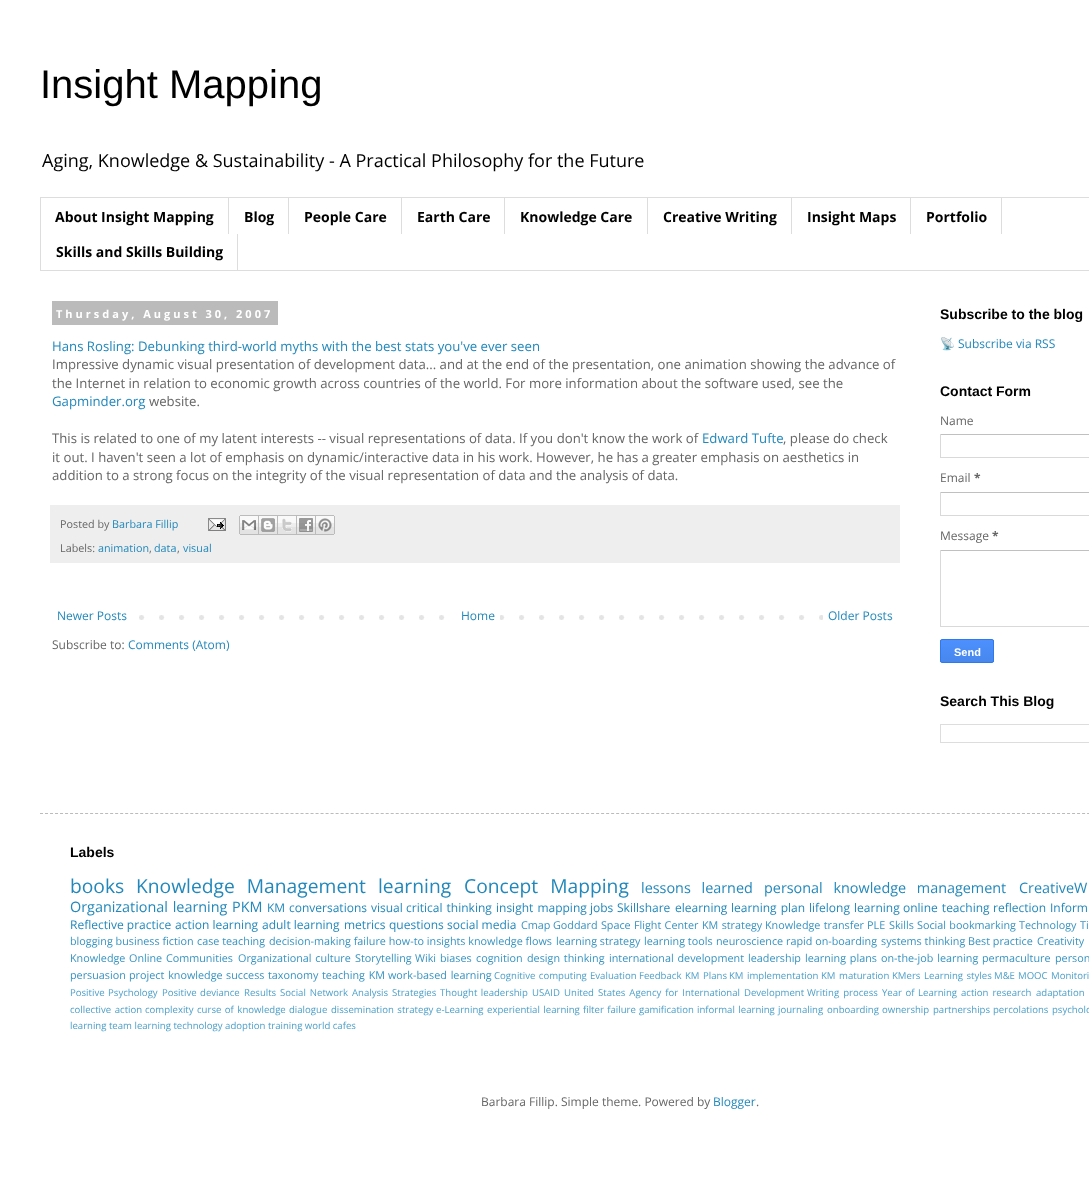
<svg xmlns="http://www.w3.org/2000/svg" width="1089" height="1187">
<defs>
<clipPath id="clip1"><rect x="940" y="639" width="54" height="24" rx="2"/></clipPath>
<linearGradient id="g1" gradientUnits="userSpaceOnUse" x1="967" y1="640" x2="967" y2="662"><stop offset="0" stop-color="#4d90fe"/><stop offset="1" stop-color="#4787ed"/></linearGradient>
</defs>
<rect width="100%" height="100%" fill="#fff"/>
<text x="40" y="98" style="font-family:Liberation Sans;font-size:40px;fill:#000">Insight Mapping</text>
<text x="42" y="167" style="font-family:Open Sans;font-size:18px;fill:#000">Aging, Knowledge &amp; Sustainability - A Practical Philosophy for the Future</text>
<rect x="40.5" y="197.5" width="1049" height="73" fill="none" stroke="#ddd"/>
<rect x="228" y="198" width="1" height="36" fill="#ddd"/>
<text x="55" y="222" style="font-family:Open Sans;font-size:14px;font-weight:bold;fill:#000">About Insight Mapping</text>
<rect x="288" y="198" width="1" height="36" fill="#ddd"/>
<text x="244" y="222" style="font-family:Open Sans;font-size:14px;font-weight:bold;fill:#000">Blog</text>
<rect x="401" y="198" width="1" height="36" fill="#ddd"/>
<text x="304" y="222" style="font-family:Open Sans;font-size:14px;font-weight:bold;fill:#000">People Care</text>
<rect x="504" y="198" width="1" height="36" fill="#ddd"/>
<text x="417" y="222" style="font-family:Open Sans;font-size:14px;font-weight:bold;fill:#000">Earth Care</text>
<rect x="647" y="198" width="1" height="36" fill="#ddd"/>
<text x="520" y="222" style="font-family:Open Sans;font-size:14px;font-weight:bold;fill:#000">Knowledge Care</text>
<rect x="791" y="198" width="1" height="36" fill="#ddd"/>
<text x="663" y="222" style="font-family:Open Sans;font-size:14px;font-weight:bold;fill:#000">Creative Writing</text>
<rect x="910" y="198" width="1" height="36" fill="#ddd"/>
<text x="807" y="222" style="font-family:Open Sans;font-size:14px;font-weight:bold;fill:#000">Insight Maps</text>
<rect x="1001" y="198" width="1" height="36" fill="#ddd"/>
<text x="926" y="222" style="font-family:Open Sans;font-size:14px;font-weight:bold;fill:#000">Portfolio</text>
<rect x="237" y="234" width="1" height="36" fill="#ddd"/>
<text x="56" y="257" style="font-family:Open Sans;font-size:14px;font-weight:bold;fill:#000">Skills and Skills Building</text>
<rect x="52" y="301" width="226" height="24" fill="#bbb"/>
<text x="56" y="318" style="font-family:Open Sans;font-size:11px;font-weight:bold;letter-spacing:3px;fill:#fff">Thursday, August 30, 2007</text>
<text x="52" y="351" style="font-family:Open Sans;font-size:13.2px;fill:#28b">Hans Rosling: Debunking third-world myths with the best stats you've ever seen</text>
<text x="52" y="369" style="font-family:Open Sans;font-size:13.2px;fill:#666">Impressive dynamic visual presentation of development data... and at the end of the presentation, one animation showing the advance of</text>
<text x="52" y="388" style="font-family:Open Sans;font-size:13.2px;fill:#666">the Internet in relation to economic growth across countries of the world. For more information about the software used, see the</text>
<text x="52" y="406" style="font-family:Open Sans;font-size:13.2px;fill:#28b">Gapminder.org</text>
<text x="149" y="406" style="font-family:Open Sans;font-size:13.2px;fill:#666">website.</text>
<text x="52" y="443" style="font-family:Open Sans;font-size:13.2px;fill:#666">This is related to one of my latent interests -- visual representations of data. If you don't know the work of</text>
<text x="702" y="443" style="font-family:Open Sans;font-size:13.2px;fill:#28b">Edward Tufte</text>
<text x="783" y="443" style="font-family:Open Sans;font-size:13.2px;fill:#666">, please do check</text>
<text x="52" y="462" style="font-family:Open Sans;font-size:13.2px;fill:#666">it out. I haven't seen a lot of emphasis on dynamic/interactive data in his work. However, he has a greater emphasis on aesthetics in</text>
<text x="52" y="480" style="font-family:Open Sans;font-size:13.2px;fill:#666">addition to a strong focus on the integrity of the visual representation of data and the analysis of data.</text>
<rect x="50" y="505" width="850" height="58" fill="#eee"/>
<text x="60" y="528" style="font-family:Open Sans;font-size:10.8px;fill:#666">Posted by</text>
<text x="112" y="528" style="font-family:Open Sans;font-size:10.8px;fill:#28b">Barbara Fillip</text>
<image x="208" y="518" width="18" height="13" href="media/1.png"/>
<image x="239" y="515" width="20" height="20" href="media/2.png"/>
<image x="259" y="515" width="19" height="20" href="media/3.png"/>
<image x="278" y="515" width="19" height="20" href="media/4.png"/>
<image x="297" y="515" width="19" height="20" href="media/5.png"/>
<image x="316" y="515" width="19" height="20" href="media/6.png"/>
<text x="60" y="552" style="font-family:Open Sans;font-size:10.8px;fill:#666">Labels:</text>
<text x="98" y="552" style="font-family:Open Sans;font-size:10.8px;fill:#28b">animation</text>
<text x="149" y="552" style="font-family:Open Sans;font-size:10.8px;fill:#666">,</text>
<text x="154" y="552" style="font-family:Open Sans;font-size:10.8px;fill:#28b">data</text>
<text x="177" y="552" style="font-family:Open Sans;font-size:10.8px;fill:#666">,</text>
<text x="183" y="552" style="font-family:Open Sans;font-size:10.8px;fill:#28b">visual</text>
<image x="139" y="615" width="684" height="5" href="media/7.png"/>
<text x="57" y="620" style="font-family:Open Sans;font-size:12px;fill:#28b">Newer Posts</text>
<rect x="459" y="615" width="41" height="5" fill="#fff"/>
<text x="461" y="620" style="font-family:Open Sans;font-size:12px;fill:#28b">Home</text>
<text x="828" y="620" style="font-family:Open Sans;font-size:12px;fill:#28b">Older Posts</text>
<text x="52" y="649" style="font-family:Open Sans;font-size:12px;fill:#666">Subscribe to:</text>
<text x="128" y="649" style="font-family:Open Sans;font-size:12px;fill:#28b">Comments (Atom)</text>
<text x="940" y="319" style="font-family:Liberation Sans;font-size:14px;font-weight:bold;fill:#000">Subscribe to the blog</text>
<text x="940" y="348" style="font-family:Noto Color Emoji;font-size:12px;fill:#28b">📡</text>
<text x="958" y="348" style="font-family:Open Sans;font-size:12px;fill:#28b">Subscribe via RSS</text>
<text x="940" y="396" style="font-family:Liberation Sans;font-size:14px;font-weight:bold;fill:#000">Contact Form</text>
<text x="940" y="425" style="font-family:Open Sans;font-size:12px;fill:#666">Name</text>
<rect x="940" y="434" width="149" height="1" fill="#c0c0c0"/>
<rect x="940" y="457" width="149" height="1" fill="#d9d9d9"/>
<rect x="940" y="434" width="1" height="24" fill="#d9d9d9"/>
<text x="940" y="482" style="font-family:Open Sans;font-size:12px;fill:#666">Email</text>
<text x="974" y="482" style="font-family:Open Sans;font-size:12px;font-weight:bold;fill:#666">*</text>
<rect x="940" y="492" width="149" height="1" fill="#c0c0c0"/>
<rect x="940" y="515" width="149" height="1" fill="#d9d9d9"/>
<rect x="940" y="492" width="1" height="24" fill="#d9d9d9"/>
<text x="940" y="540" style="font-family:Open Sans;font-size:12px;fill:#666">Message</text>
<text x="992" y="540" style="font-family:Open Sans;font-size:12px;font-weight:bold;fill:#666">*</text>
<rect x="940" y="550" width="149" height="1" fill="#c0c0c0"/>
<rect x="940" y="626" width="149" height="1" fill="#d9d9d9"/>
<rect x="940" y="550" width="1" height="77" fill="#d9d9d9"/>
<g clip-path="url(#clip1)">
<rect x="940" y="640" width="54" height="22" fill="url(#g1)"/>
</g>
<rect x="940.5" y="639.5" width="53" height="23" rx="1.5" fill="none" stroke="#3079ed"/>
<text x="954" y="656" style="font-family:Liberation Sans;font-size:11px;font-weight:bold;fill:#fff">Send</text>
<text x="940" y="706" style="font-family:Liberation Sans;font-size:14px;font-weight:bold;fill:#000">Search This Blog</text>
<rect x="940.5" y="724.5" width="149" height="18" fill="none" stroke="#ddd"/>
<path d="M40 813.5h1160" fill="none" stroke="#bbb" stroke-dasharray="3 2.01"/>
<text x="70" y="857" style="font-family:Liberation Sans;font-size:14px;font-weight:bold;fill:#000">Labels</text>
<text x="70" y="893" style="font-family:Open Sans;font-size:19.25px;fill:#28b">books</text>
<text x="136" y="893" word-spacing="7" style="font-family:Open Sans;font-size:19.25px;fill:#28b">Knowledge Management</text>
<text x="378" y="893" style="font-family:Open Sans;font-size:19.25px;fill:#28b">learning</text>
<text x="464" y="893" word-spacing="7" style="font-family:Open Sans;font-size:19.25px;fill:#28b">Concept Mapping</text>
<text x="641" y="893" word-spacing="7" style="font-family:Open Sans;font-size:14.4px;fill:#28b">lessons learned</text>
<text x="764" y="893" word-spacing="7" style="font-family:Open Sans;font-size:14.4px;fill:#28b">personal knowledge management</text>
<text x="1019" y="893" style="font-family:Open Sans;font-size:14.4px;fill:#28b">CreativeW</text>
<text x="70" y="912" word-spacing="1" style="font-family:Open Sans;font-size:14.4px;fill:#28b">Organizational learning</text>
<text x="232" y="912" style="font-family:Open Sans;font-size:14.4px;fill:#28b">PKM</text>
<text x="267" y="912" style="font-family:Open Sans;font-size:12px;fill:#28b">KM</text>
<text x="289" y="912" style="font-family:Open Sans;font-size:12px;fill:#28b">conversations</text>
<text x="371" y="912" style="font-family:Open Sans;font-size:12px;fill:#28b">visual</text>
<text x="406" y="912" word-spacing="1" style="font-family:Open Sans;font-size:12px;fill:#28b">critical thinking</text>
<text x="496" y="912" word-spacing="1" style="font-family:Open Sans;font-size:12px;fill:#28b">insight mapping</text>
<text x="590" y="912" style="font-family:Open Sans;font-size:12px;fill:#28b">jobs</text>
<text x="617" y="912" style="font-family:Open Sans;font-size:12px;fill:#28b">Skillshare</text>
<text x="675" y="912" style="font-family:Open Sans;font-size:12px;fill:#28b">elearning</text>
<text x="731" y="912" word-spacing="1" style="font-family:Open Sans;font-size:12px;fill:#28b">learning plan</text>
<text x="809" y="912" word-spacing="1" style="font-family:Open Sans;font-size:12px;fill:#28b">lifelong learning</text>
<text x="903" y="912" word-spacing="1" style="font-family:Open Sans;font-size:12px;fill:#28b">online teaching</text>
<text x="993" y="912" style="font-family:Open Sans;font-size:12px;fill:#28b">reflection</text>
<text x="1050" y="912" word-spacing="1" style="font-family:Open Sans;font-size:12px;fill:#28b">Inform</text>
<text x="70" y="929" style="font-family:Open Sans;font-size:12px;fill:#28b">Reflective practice</text>
<text x="175" y="929" style="font-family:Open Sans;font-size:12px;fill:#28b">action learning</text>
<text x="262" y="929" style="font-family:Open Sans;font-size:12px;fill:#28b">adult learning</text>
<text x="344" y="929" style="font-family:Open Sans;font-size:12px;fill:#28b">metrics</text>
<text x="389" y="929" style="font-family:Open Sans;font-size:12px;fill:#28b">questions</text>
<text x="447" y="929" style="font-family:Open Sans;font-size:12px;fill:#28b">social media</text>
<text x="521" y="929" style="font-family:Open Sans;font-size:10.8px;fill:#3894c2">Cmap</text>
<text x="553" y="929" word-spacing="0.5" style="font-family:Open Sans;font-size:10.8px;fill:#3894c2">Goddard Space Flight Center</text>
<text x="702" y="929" word-spacing="0.5" style="font-family:Open Sans;font-size:10.8px;fill:#3894c2">KM strategy</text>
<text x="765" y="929" word-spacing="0.5" style="font-family:Open Sans;font-size:10.8px;fill:#3894c2">Knowledge transfer</text>
<text x="867" y="929" style="font-family:Open Sans;font-size:10.8px;fill:#3894c2">PLE</text>
<text x="889" y="929" style="font-family:Open Sans;font-size:10.8px;fill:#3894c2">Skills</text>
<text x="917" y="929" word-spacing="0.5" style="font-family:Open Sans;font-size:10.8px;fill:#3894c2">Social bookmarking</text>
<text x="1019" y="929" style="font-family:Open Sans;font-size:10.8px;fill:#3894c2">Technology</text>
<text x="1080" y="929" style="font-family:Open Sans;font-size:10.8px;fill:#3894c2">Ti</text>
<text x="70" y="945" style="font-family:Open Sans;font-size:10.8px;fill:#3894c2">blogging business fiction</text>
<text x="197" y="945" style="font-family:Open Sans;font-size:10.8px;fill:#3894c2">case teaching</text>
<text x="269" y="945" style="font-family:Open Sans;font-size:10.8px;fill:#3894c2">decision-making failure how-to insights knowledge flows</text>
<text x="556" y="945" style="font-family:Open Sans;font-size:10.8px;fill:#3894c2">learning strategy</text>
<text x="644" y="945" style="font-family:Open Sans;font-size:10.8px;fill:#3894c2">learning tools</text>
<text x="716" y="945" style="font-family:Open Sans;font-size:10.8px;fill:#3894c2">neuroscience rapid on-boarding</text>
<text x="881" y="945" style="font-family:Open Sans;font-size:10.8px;fill:#3894c2">systems thinking</text>
<text x="968" y="945" style="font-family:Open Sans;font-size:10.8px;fill:#3894c2">Best practice</text>
<text x="1037" y="945" style="font-family:Open Sans;font-size:10.8px;fill:#3894c2">Creativity</text>
<text x="70" y="962" style="font-family:Open Sans;font-size:10.8px;fill:#3894c2">Knowledge</text>
<text x="129" y="962" word-spacing="1" style="font-family:Open Sans;font-size:10.8px;fill:#3894c2">Online Communities</text>
<text x="238" y="962" word-spacing="1" style="font-family:Open Sans;font-size:10.8px;fill:#3894c2">Organizational culture</text>
<text x="355" y="962" style="font-family:Open Sans;font-size:10.8px;fill:#3894c2">Storytelling</text>
<text x="415" y="962" style="font-family:Open Sans;font-size:10.8px;fill:#3894c2">Wiki</text>
<text x="440" y="962" style="font-family:Open Sans;font-size:10.8px;fill:#3894c2">biases</text>
<text x="476" y="962" style="font-family:Open Sans;font-size:10.8px;fill:#3894c2">cognition</text>
<text x="527" y="962" word-spacing="1" style="font-family:Open Sans;font-size:10.8px;fill:#3894c2">design thinking</text>
<text x="609" y="962" word-spacing="1" style="font-family:Open Sans;font-size:10.8px;fill:#3894c2">international development</text>
<text x="748" y="962" style="font-family:Open Sans;font-size:10.8px;fill:#3894c2">leadership</text>
<text x="805" y="962" word-spacing="1" style="font-family:Open Sans;font-size:10.8px;fill:#3894c2">learning plans</text>
<text x="881" y="962" word-spacing="1" style="font-family:Open Sans;font-size:10.8px;fill:#3894c2">on-the-job learning</text>
<text x="982" y="962" style="font-family:Open Sans;font-size:10.8px;fill:#3894c2">permaculture</text>
<text x="1055" y="962" word-spacing="1" style="font-family:Open Sans;font-size:10.8px;fill:#3894c2">person</text>
<text x="70" y="979" style="font-family:Open Sans;font-size:10.8px;fill:#3894c2">persuasion</text>
<text x="129" y="979" word-spacing="1" style="font-family:Open Sans;font-size:10.8px;fill:#3894c2">project knowledge</text>
<text x="226" y="979" style="font-family:Open Sans;font-size:10.8px;fill:#3894c2">success</text>
<text x="268" y="979" style="font-family:Open Sans;font-size:10.8px;fill:#3894c2">taxonomy</text>
<text x="322" y="979" word-spacing="1" style="font-family:Open Sans;font-size:10.8px;fill:#3894c2">teaching KM</text>
<text x="388" y="979" word-spacing="1" style="font-family:Open Sans;font-size:10.8px;fill:#3894c2">work-based learning</text>
<text x="494" y="979" word-spacing="1" style="font-family:Open Sans;font-size:9.6px;fill:#4ea0c9">Cognitive computing</text>
<text x="590" y="979" style="font-family:Open Sans;font-size:9.6px;fill:#4ea0c9">Evaluation</text>
<text x="639" y="979" style="font-family:Open Sans;font-size:9.6px;fill:#4ea0c9">Feedback</text>
<text x="685" y="979" word-spacing="1" style="font-family:Open Sans;font-size:9.6px;fill:#4ea0c9">KM Plans</text>
<text x="729" y="979" word-spacing="1" style="font-family:Open Sans;font-size:9.6px;fill:#4ea0c9">KM implementation</text>
<text x="821" y="979" word-spacing="1" style="font-family:Open Sans;font-size:9.6px;fill:#4ea0c9">KM maturation</text>
<text x="892" y="979" style="font-family:Open Sans;font-size:9.6px;fill:#4ea0c9">KMers</text>
<text x="924" y="979" word-spacing="1" style="font-family:Open Sans;font-size:9.6px;fill:#4ea0c9">Learning styles</text>
<text x="994" y="979" style="font-family:Open Sans;font-size:9.6px;fill:#4ea0c9">M&amp;E</text>
<text x="1018" y="979" style="font-family:Open Sans;font-size:9.6px;fill:#4ea0c9">MOOC</text>
<text x="1051" y="979" word-spacing="1" style="font-family:Open Sans;font-size:9.6px;fill:#4ea0c9">Monitori</text>
<text x="70" y="996" word-spacing="1" style="font-family:Open Sans;font-size:9.6px;fill:#4ea0c9">Positive Psychology</text>
<text x="162" y="996" word-spacing="1" style="font-family:Open Sans;font-size:9.6px;fill:#4ea0c9">Positive deviance</text>
<text x="244" y="996" style="font-family:Open Sans;font-size:9.6px;fill:#4ea0c9">Results</text>
<text x="280" y="996" word-spacing="1.5" style="font-family:Open Sans;font-size:9.6px;fill:#4ea0c9">Social Network Analysis</text>
<text x="392" y="996" style="font-family:Open Sans;font-size:9.6px;fill:#4ea0c9">Strategies</text>
<text x="440" y="996" word-spacing="1" style="font-family:Open Sans;font-size:9.6px;fill:#4ea0c9">Thought leadership</text>
<text x="532" y="996" style="font-family:Open Sans;font-size:9.6px;fill:#4ea0c9">USAID</text>
<text x="564" y="996" word-spacing="1.5" style="font-family:Open Sans;font-size:9.6px;fill:#4ea0c9">United States Agency for International Development</text>
<text x="807" y="996" word-spacing="1.5" style="font-family:Open Sans;font-size:9.6px;fill:#4ea0c9">Writing process</text>
<text x="882" y="996" word-spacing="1" style="font-family:Open Sans;font-size:9.6px;fill:#4ea0c9">Year of Learning</text>
<text x="961" y="996" word-spacing="1.5" style="font-family:Open Sans;font-size:9.6px;fill:#4ea0c9">action research</text>
<text x="1036" y="996" style="font-family:Open Sans;font-size:9.6px;fill:#4ea0c9">adaptation</text>
<text x="70" y="1013" word-spacing="1" style="font-family:Open Sans;font-size:9.6px;fill:#4ea0c9">collective action</text>
<text x="145" y="1013" style="font-family:Open Sans;font-size:9.6px;fill:#4ea0c9">complexity</text>
<text x="197" y="1013" word-spacing="1" style="font-family:Open Sans;font-size:9.6px;fill:#4ea0c9">curse of knowledge</text>
<text x="289" y="1013" style="font-family:Open Sans;font-size:9.6px;fill:#4ea0c9">dialogue</text>
<text x="331" y="1013" word-spacing="1" style="font-family:Open Sans;font-size:9.6px;fill:#4ea0c9">dissemination strategy</text>
<text x="436" y="1013" style="font-family:Open Sans;font-size:9.6px;fill:#4ea0c9">e-Learning</text>
<text x="487" y="1013" word-spacing="1" style="font-family:Open Sans;font-size:9.6px;fill:#4ea0c9">experiential learning</text>
<text x="583" y="1013" word-spacing="1" style="font-family:Open Sans;font-size:9.6px;fill:#4ea0c9">filter failure</text>
<text x="639" y="1013" style="font-family:Open Sans;font-size:9.6px;fill:#4ea0c9">gamification</text>
<text x="697" y="1013" word-spacing="1" style="font-family:Open Sans;font-size:9.6px;fill:#4ea0c9">informal learning</text>
<text x="778" y="1013" style="font-family:Open Sans;font-size:9.6px;fill:#4ea0c9">journaling</text>
<text x="827" y="1013" style="font-family:Open Sans;font-size:9.6px;fill:#4ea0c9">onboarding</text>
<text x="882" y="1013" style="font-family:Open Sans;font-size:9.6px;fill:#4ea0c9">ownership</text>
<text x="933" y="1013" style="font-family:Open Sans;font-size:9.6px;fill:#4ea0c9">partnerships</text>
<text x="993" y="1013" style="font-family:Open Sans;font-size:9.6px;fill:#4ea0c9">percolations</text>
<text x="1052" y="1013" word-spacing="1" style="font-family:Open Sans;font-size:9.6px;fill:#4ea0c9">psycholo</text>
<text x="70" y="1029" style="font-family:Open Sans;font-size:9.6px;fill:#4ea0c9">learning team learning technology adoption training world cafes</text>
<text x="481" y="1106" style="font-family:Open Sans;font-size:12px;fill:#666">Barbara Fillip. Simple theme. Powered by</text>
<text x="713" y="1106" style="font-family:Open Sans;font-size:12px;fill:#28b">Blogger</text>
<text x="756" y="1106" style="font-family:Open Sans;font-size:12px;fill:#666">.</text>
</svg>
